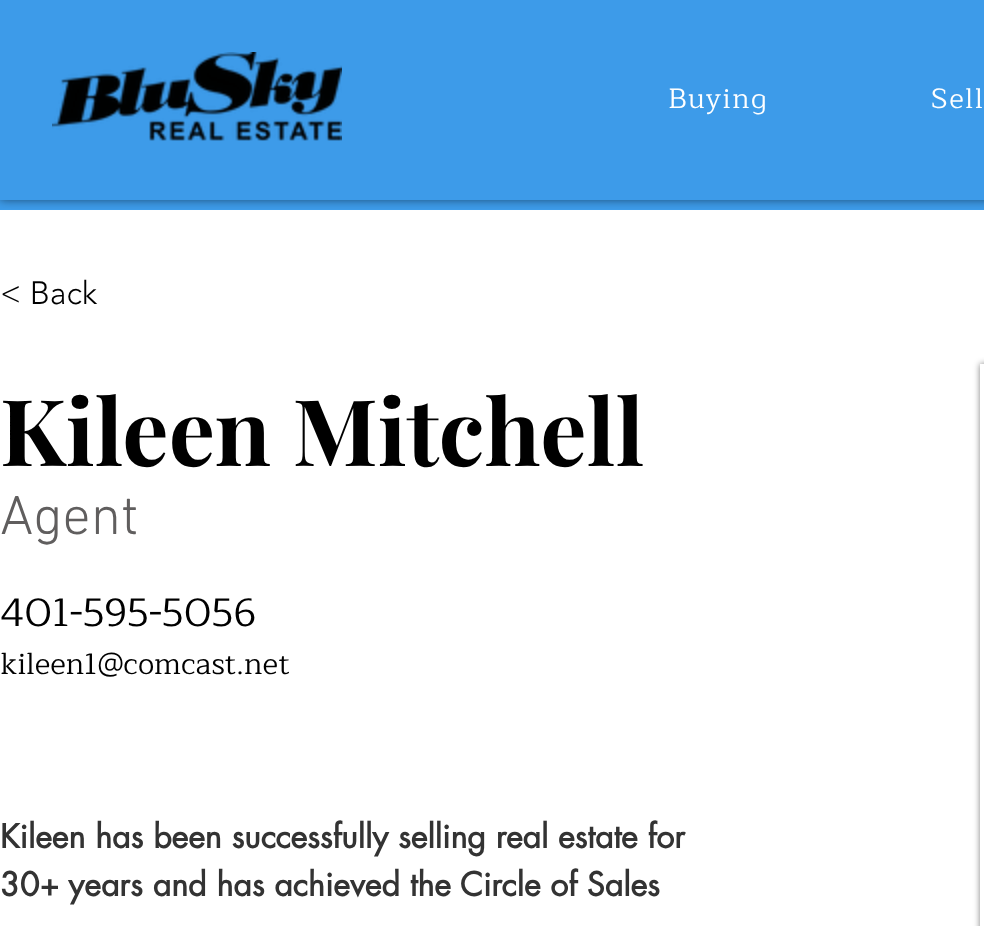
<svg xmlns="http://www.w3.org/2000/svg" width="984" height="926">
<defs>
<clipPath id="clip1"><rect x="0" y="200" width="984" height="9"/></clipPath>
</defs>
<rect width="100%" height="100%" fill="#3d9be9"/>
<rect y="210" width="980" height="716" fill="#fff"/>
<rect x="980" y="210" width="4" height="154" fill="#fff"/>
<g clip-path="url(#clip1)">
<rect width="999" height="200" fill="#00000080" filter="blur(5px)"/>
</g>
<image x="52" y="52" width="290" height="89" href="media/1.png"/>
<text x="668" y="108" style="font-family:Maitree;font-size:28px;letter-spacing:1.5px;fill:#fff">Buying</text>
<text x="931" y="108" style="font-family:Maitree;font-size:28px;letter-spacing:1.5px;fill:#fff">Sell</text>
<text x="0" y="304" style="font-family:'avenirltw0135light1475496';font-size:32px;font-weight:300;fill:#000">&lt; Back</text>
<text x="0" y="466" style="font-family:Playfair Display;font-size:92px;font-weight:bold;fill:#000">Kileen Mitchell</text>
<text x="0" y="534" style="font-family:'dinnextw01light';font-size:56px;font-weight:300;fill:#605e5e">Agent</text>
<text x="0" y="626" style="font-family:Maitree;font-size:40px;fill:#000">401-595-5056</text>
<text x="0" y="674" style="font-family:Maitree;font-size:30px;fill:#000">kileen1@comcast.net</text>
<text x="0" y="848" style="font-family:futura;font-size:32px;font-weight:bold;fill:#333">Kileen has been successfully selling real estate for</text>
<text x="0" y="896" style="font-family:futura;font-size:32px;font-weight:bold;fill:#333">30+ years and has achieved the Circle of Sales</text>
<rect x="980" y="364" width="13" height="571" fill="#00000080" filter="blur(3px)"/>
<rect x="980" y="364" width="4" height="562" fill="#fff"/>
</svg>
